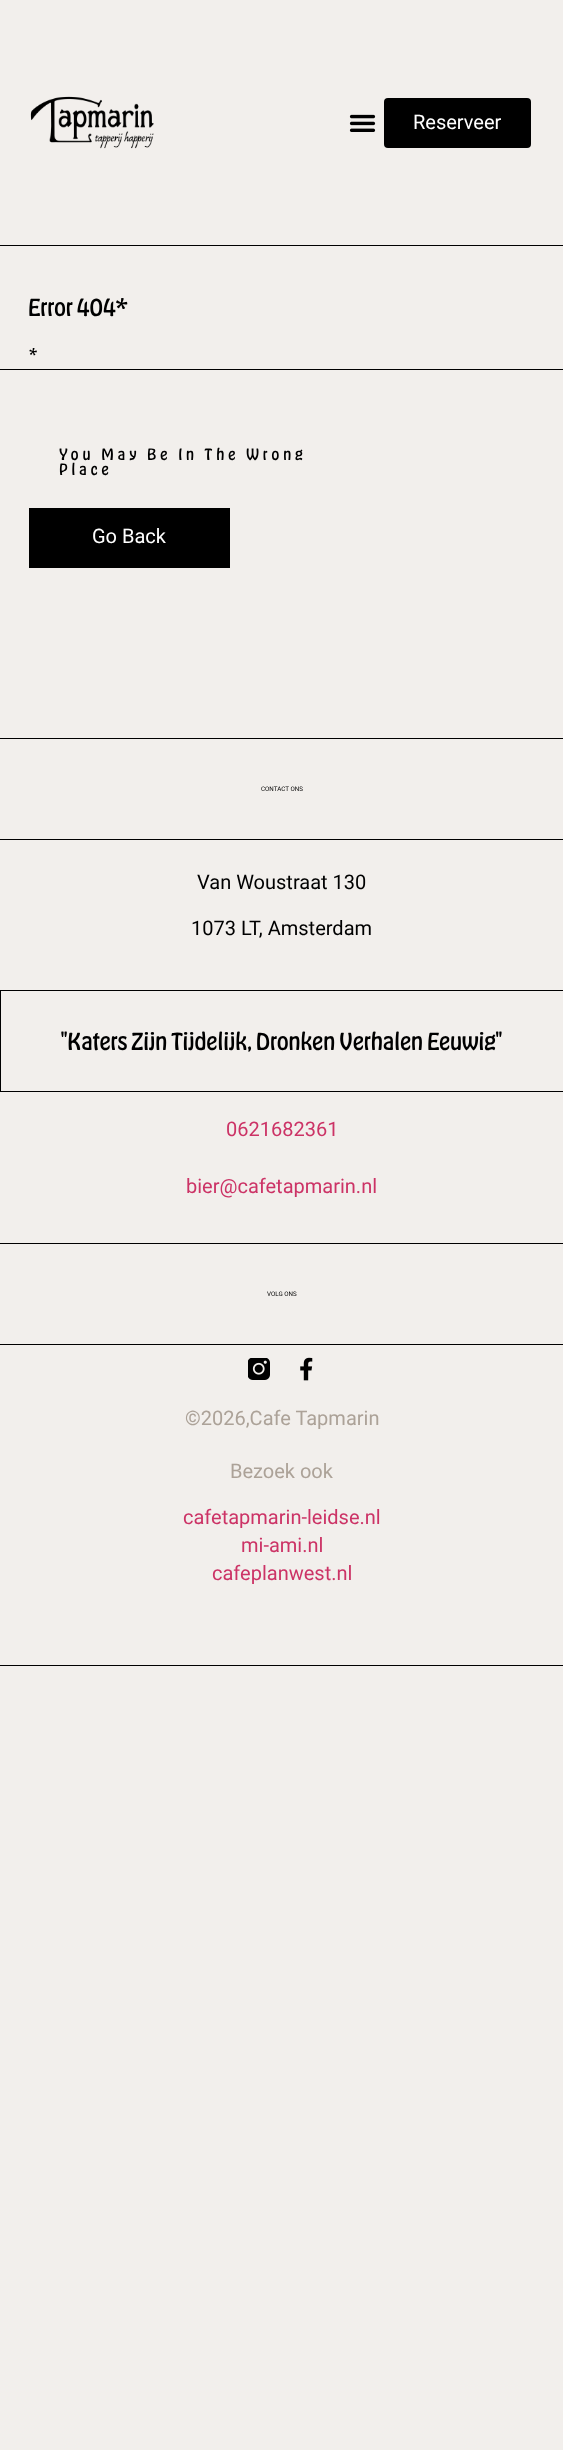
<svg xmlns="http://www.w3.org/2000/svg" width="563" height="2450">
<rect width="100%" height="100%" fill="#f2efec"/>
<rect y="245" width="563" height="1" fill="#000"/>
<image x="30" y="96" width="124" height="53" href="media/1.png"/>
<image x="349" y="114" width="27" height="18" href="media/2.png"/>
<rect x="384" y="98" width="147" height="50" rx="4" fill="#000"/>
<text x="413" y="129" style="font-family:Roboto;font-size:20px;fill:#fff">Reserveer</text>
<text x="28" y="316" style="font-family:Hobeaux;font-size:22.5px;fill:#000">Error 404*</text>
<rect y="369" width="563" height="1" fill="#000"/>
<text x="29" y="360" style="font-family:Hobeaux;font-size:15px;letter-spacing:4px;fill:#000">*</text>
<text x="59" y="460" style="font-family:Hobeaux;font-size:15px;letter-spacing:4px;fill:#000">You May Be In The Wrong</text>
<text x="59" y="475" style="font-family:Hobeaux;font-size:15px;letter-spacing:4px;fill:#000">Place</text>
<rect x="29" y="508" width="201" height="60" fill="#000"/>
<text x="92" y="543" style="font-family:Roboto;font-size:20px;fill:#fff">Go Back</text>
<rect y="738" width="563" height="1" fill="#000"/>
<rect y="1665" width="563" height="1" fill="#000"/>
<text x="261" y="791" style="font-family:Roboto;font-size:6.25px;fill:#000">CONTACT ONS</text>
<rect y="839" width="563" height="1" fill="#000"/>
<text x="197" y="889" style="font-family:Roboto;font-size:20px;fill:#000">Van Woustraat 130</text>
<text x="191" y="935" style="font-family:Roboto;font-size:20px;fill:#000">1073 LT, Amsterdam</text>
<rect y="990" width="563" height="1" fill="#000"/>
<rect y="991" width="1" height="100" fill="#000"/>
<text x="61" y="1050" style="font-family:Hobeaux;font-size:22.5px;fill:#000">"Katers Zijn Tijdelijk, Dronken Verhalen Eeuwig"</text>
<rect y="1091" width="563" height="1" fill="#000"/>
<text x="226" y="1136" style="font-family:Roboto;font-size:20px;fill:#c36">0621682361</text>
<text x="186" y="1193" style="font-family:Roboto;font-size:20px;fill:#c36">bier@cafetapmarin.nl</text>
<rect y="1243" width="563" height="1" fill="#000"/>
<text x="267" y="1296" style="font-family:Roboto;font-size:6.25px;fill:#000">VOLG ONS</text>
<rect y="1344" width="563" height="1" fill="#000"/>
<image x="248" y="1358" width="22" height="22" href="media/3.png"/>
<image x="300" y="1357" width="13" height="24" href="media/4.png"/>
<text x="185" y="1425" style="font-family:Roboto;font-size:20px;fill:#aca298">©2026,Cafe Tapmarin</text>
<text x="230" y="1478" style="font-family:Roboto;font-size:20px;fill:#aca298">Bezoek ook</text>
<text x="183" y="1524" style="font-family:Roboto;font-size:20px;fill:#c36">cafetapmarin-leidse.nl</text>
<text x="241" y="1552" style="font-family:Roboto;font-size:20px;fill:#c36">mi-ami.nl</text>
<text x="212" y="1580" style="font-family:Roboto;font-size:20px;fill:#c36">cafeplanwest.nl</text>
</svg>
